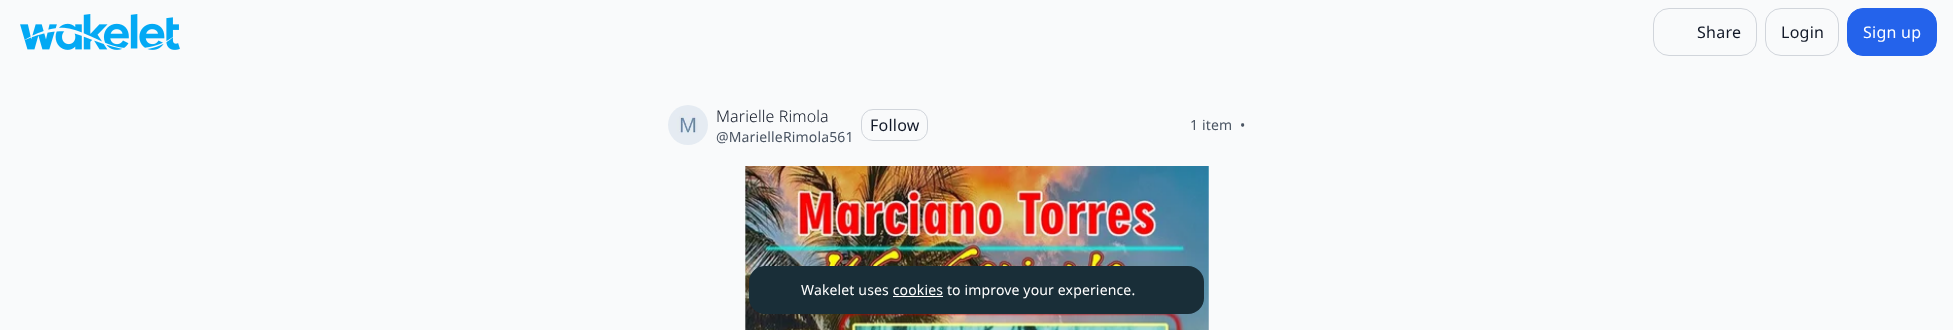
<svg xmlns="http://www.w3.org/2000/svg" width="1953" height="330">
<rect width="100%" height="100%" fill="#f9fafb"/>
<image x="20" y="14" width="160" height="36" href="media/1.png"/>
<rect x="1653.5" y="8.5" width="103" height="47" rx="15.5" fill="none" stroke="#d1d5db"/>
<text x="1697" y="38" style="font-family:Noto Sans;font-size:16px;letter-spacing:0.25px;fill:#111827">Share</text>
<rect x="1765.5" y="8.5" width="73" height="47" rx="15.5" fill="none" stroke="#d1d5db"/>
<text x="1781" y="38" style="font-family:Noto Sans;font-size:16px;letter-spacing:0.25px;fill:#111827">Login</text>
<rect x="1847.5" y="8.5" width="89" height="47" rx="15.5" fill="#2463eb" stroke="#2463eb"/>
<text x="1863" y="38" style="font-family:Noto Sans;font-size:16px;letter-spacing:0.25px;fill:#fff">Sign up</text>
<image x="668" y="105" width="40" height="40" href="media/2.png"/>
<text x="716" y="122" style="font-family:Noto Sans;font-size:16px;font-weight:300;letter-spacing:0.1px;fill:#111827">Marielle Rimola</text>
<text x="716" y="142" style="font-family:Noto Sans;font-size:14px;letter-spacing:0.15px;fill:#4b5563">@MarielleRimola561</text>
<rect x="861.5" y="109.5" width="66" height="31" rx="11.5" fill="none" stroke="#d1d5db"/>
<text x="870" y="131" style="font-family:Noto Sans;font-size:16px;letter-spacing:0.25px;fill:#111827">Follow</text>
<text x="1190" y="130" style="font-family:Noto Sans;font-size:14px;letter-spacing:0.15px;fill:#4b5563">1 item</text>
<text x="1240" y="130" style="font-family:Noto Sans;font-size:14px;letter-spacing:0.15px;fill:#4b5563">•</text>
<image x="745" y="166" width="464" height="164" href="media/3.png"/>
<rect x="749" y="266" width="455" height="48" rx="16" fill="#192e38"/>
<text x="801" y="295" style="font-family:Noto Sans;font-size:14px;letter-spacing:0.15px;fill:#fff">Wakelet uses cookies to improve your experience.</text>
<rect x="893" y="296" width="50" height="1" fill="#fff"/>
</svg>
